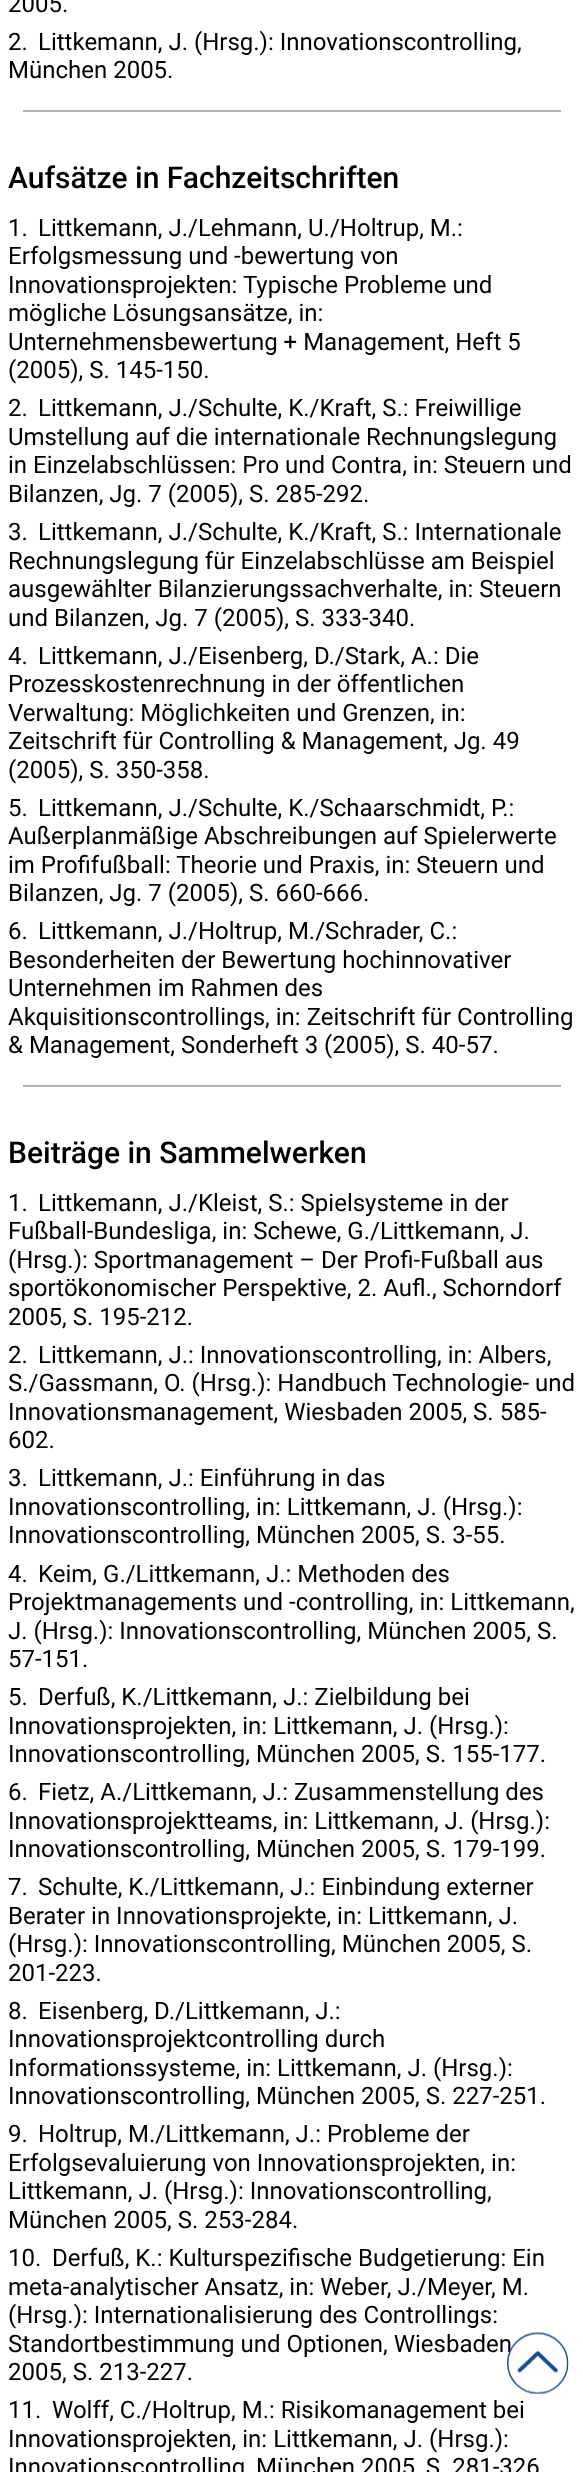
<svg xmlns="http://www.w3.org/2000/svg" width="583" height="2472">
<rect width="100%" height="100%" fill="#fff"/>
<text x="8" y="12" style="font-family:Roboto;font-size:24px;fill:#000">2005.</text>
<text x="8" y="50" style="font-family:Roboto;font-size:24px;fill:#000">2.</text>
<text x="38" y="50" style="font-family:Roboto;font-size:24px;fill:#000">Littkemann, J. (Hrsg.): Innovationscontrolling,</text>
<text x="8" y="78" style="font-family:Roboto;font-size:24px;fill:#000">München 2005.</text>
<rect x="23" y="110" width="538" height="2" fill="#b1b3b3"/>
<text x="8" y="188" style="font-family:Roboto;font-size:30px;font-weight:500;fill:#000">Aufsätze in Fachzeitschriften</text>
<text x="8" y="236" style="font-family:Roboto;font-size:24px;fill:#000">1.</text>
<text x="38" y="236" style="font-family:Roboto;font-size:24px;fill:#000">Littkemann, J./Lehmann, U./Holtrup, M.:</text>
<text x="8" y="264" style="font-family:Roboto;font-size:24px;fill:#000">Erfolgsmessung und -bewertung von</text>
<text x="8" y="293" style="font-family:Roboto;font-size:24px;fill:#000">Innovationsprojekten: Typische Probleme und</text>
<text x="8" y="321" style="font-family:Roboto;font-size:24px;fill:#000">mögliche Lösungsansätze, in:</text>
<text x="8" y="350" style="font-family:Roboto;font-size:24px;fill:#000">Unternehmensbewertung + Management, Heft 5</text>
<text x="8" y="378" style="font-family:Roboto;font-size:24px;fill:#000">(2005), S. 145-150.</text>
<text x="8" y="416" style="font-family:Roboto;font-size:24px;fill:#000">2.</text>
<text x="38" y="416" style="font-family:Roboto;font-size:24px;fill:#000">Littkemann, J./Schulte, K./Kraft, S.: Freiwillige</text>
<text x="8" y="445" style="font-family:Roboto;font-size:24px;fill:#000">Umstellung auf die internationale Rechnungslegung</text>
<text x="8" y="473" style="font-family:Roboto;font-size:24px;fill:#000">in Einzelabschlüssen: Pro und Contra, in: Steuern und</text>
<text x="8" y="502" style="font-family:Roboto;font-size:24px;fill:#000">Bilanzen, Jg. 7 (2005), S. 285-292.</text>
<text x="8" y="540" style="font-family:Roboto;font-size:24px;fill:#000">3.</text>
<text x="38" y="540" style="font-family:Roboto;font-size:24px;fill:#000">Littkemann, J./Schulte, K./Kraft, S.: Internationale</text>
<text x="8" y="569" style="font-family:Roboto;font-size:24px;fill:#000">Rechnungslegung für Einzelabschlüsse am Beispiel</text>
<text x="8" y="597" style="font-family:Roboto;font-size:24px;fill:#000">ausgewählter Bilanzierungssachverhalte, in: Steuern</text>
<text x="8" y="626" style="font-family:Roboto;font-size:24px;fill:#000">und Bilanzen, Jg. 7 (2005), S. 333-340.</text>
<text x="8" y="664" style="font-family:Roboto;font-size:24px;fill:#000">4.</text>
<text x="38" y="664" style="font-family:Roboto;font-size:24px;fill:#000">Littkemann, J./Eisenberg, D./Stark, A.: Die</text>
<text x="8" y="692" style="font-family:Roboto;font-size:24px;fill:#000">Prozesskostenrechnung in der öffentlichen</text>
<text x="8" y="721" style="font-family:Roboto;font-size:24px;fill:#000">Verwaltung: Möglichkeiten und Grenzen, in:</text>
<text x="8" y="749" style="font-family:Roboto;font-size:24px;fill:#000">Zeitschrift für Controlling &amp; Management, Jg. 49</text>
<text x="8" y="778" style="font-family:Roboto;font-size:24px;fill:#000">(2005), S. 350-358.</text>
<text x="8" y="816" style="font-family:Roboto;font-size:24px;fill:#000">5.</text>
<text x="38" y="816" style="font-family:Roboto;font-size:24px;fill:#000">Littkemann, J./Schulte, K./Schaarschmidt, P.:</text>
<text x="8" y="844" style="font-family:Roboto;font-size:24px;fill:#000">Außerplanmäßige Abschreibungen auf Spielerwerte</text>
<text x="8" y="873" style="font-family:Roboto;font-size:24px;fill:#000">im Profifußball: Theorie und Praxis, in: Steuern und</text>
<text x="8" y="901" style="font-family:Roboto;font-size:24px;fill:#000">Bilanzen, Jg. 7 (2005), S. 660-666.</text>
<text x="8" y="939" style="font-family:Roboto;font-size:24px;fill:#000">6.</text>
<text x="38" y="939" style="font-family:Roboto;font-size:24px;fill:#000">Littkemann, J./Holtrup, M./Schrader, C.:</text>
<text x="8" y="968" style="font-family:Roboto;font-size:24px;fill:#000">Besonderheiten der Bewertung hochinnovativer</text>
<text x="8" y="996" style="font-family:Roboto;font-size:24px;fill:#000">Unternehmen im Rahmen des</text>
<text x="8" y="1025" style="font-family:Roboto;font-size:24px;fill:#000">Akquisitionscontrollings, in: Zeitschrift für Controlling</text>
<text x="8" y="1053" style="font-family:Roboto;font-size:24px;fill:#000">&amp; Management, Sonderheft 3 (2005), S. 40-57.</text>
<rect x="23" y="1085" width="538" height="2" fill="#b1b3b3"/>
<text x="8" y="1163" style="font-family:Roboto;font-size:30px;font-weight:500;fill:#000">Beiträge in Sammelwerken</text>
<text x="8" y="1211" style="font-family:Roboto;font-size:24px;fill:#000">1.</text>
<text x="38" y="1211" style="font-family:Roboto;font-size:24px;fill:#000">Littkemann, J./Kleist, S.: Spielsysteme in der</text>
<text x="8" y="1239" style="font-family:Roboto;font-size:24px;fill:#000">Fußball-Bundesliga, in: Schewe, G./Littkemann, J.</text>
<text x="8" y="1268" style="font-family:Roboto;font-size:24px;fill:#000">(Hrsg.): Sportmanagement – Der Profi-Fußball aus</text>
<text x="8" y="1296" style="font-family:Roboto;font-size:24px;fill:#000">sportökonomischer Perspektive, 2. Aufl., Schorndorf</text>
<text x="8" y="1325" style="font-family:Roboto;font-size:24px;fill:#000">2005, S. 195-212.</text>
<text x="8" y="1363" style="font-family:Roboto;font-size:24px;fill:#000">2.</text>
<text x="38" y="1363" style="font-family:Roboto;font-size:24px;fill:#000">Littkemann, J.: Innovationscontrolling, in: Albers,</text>
<text x="8" y="1391" style="font-family:Roboto;font-size:24px;fill:#000">S./Gassmann, O. (Hrsg.): Handbuch Technologie- und</text>
<text x="8" y="1420" style="font-family:Roboto;font-size:24px;fill:#000">Innovationsmanagement, Wiesbaden 2005, S. 585-</text>
<text x="8" y="1448" style="font-family:Roboto;font-size:24px;fill:#000">602.</text>
<text x="8" y="1486" style="font-family:Roboto;font-size:24px;fill:#000">3.</text>
<text x="38" y="1486" style="font-family:Roboto;font-size:24px;fill:#000">Littkemann, J.: Einführung in das</text>
<text x="8" y="1515" style="font-family:Roboto;font-size:24px;fill:#000">Innovationscontrolling, in: Littkemann, J. (Hrsg.):</text>
<text x="8" y="1543" style="font-family:Roboto;font-size:24px;fill:#000">Innovationscontrolling, München 2005, S. 3-55.</text>
<text x="8" y="1582" style="font-family:Roboto;font-size:24px;fill:#000">4.</text>
<text x="38" y="1582" style="font-family:Roboto;font-size:24px;fill:#000">Keim, G./Littkemann, J.: Methoden des</text>
<text x="8" y="1610" style="font-family:Roboto;font-size:24px;fill:#000">Projektmanagements und -controlling, in: Littkemann,</text>
<text x="8" y="1639" style="font-family:Roboto;font-size:24px;fill:#000">J. (Hrsg.): Innovationscontrolling, München 2005, S.</text>
<text x="8" y="1667" style="font-family:Roboto;font-size:24px;fill:#000">57-151.</text>
<text x="8" y="1705" style="font-family:Roboto;font-size:24px;fill:#000">5.</text>
<text x="38" y="1705" style="font-family:Roboto;font-size:24px;fill:#000">Derfuß, K./Littkemann, J.: Zielbildung bei</text>
<text x="8" y="1734" style="font-family:Roboto;font-size:24px;fill:#000">Innovationsprojekten, in: Littkemann, J. (Hrsg.):</text>
<text x="8" y="1762" style="font-family:Roboto;font-size:24px;fill:#000">Innovationscontrolling, München 2005, S. 155-177.</text>
<text x="8" y="1800" style="font-family:Roboto;font-size:24px;fill:#000">6.</text>
<text x="38" y="1800" style="font-family:Roboto;font-size:24px;fill:#000">Fietz, A./Littkemann, J.: Zusammenstellung des</text>
<text x="8" y="1829" style="font-family:Roboto;font-size:24px;fill:#000">Innovationsprojektteams, in: Littkemann, J. (Hrsg.):</text>
<text x="8" y="1857" style="font-family:Roboto;font-size:24px;fill:#000">Innovationscontrolling, München 2005, S. 179-199.</text>
<text x="8" y="1895" style="font-family:Roboto;font-size:24px;fill:#000">7.</text>
<text x="38" y="1895" style="font-family:Roboto;font-size:24px;fill:#000">Schulte, K./Littkemann, J.: Einbindung externer</text>
<text x="8" y="1924" style="font-family:Roboto;font-size:24px;fill:#000">Berater in Innovationsprojekte, in: Littkemann, J.</text>
<text x="8" y="1952" style="font-family:Roboto;font-size:24px;fill:#000">(Hrsg.): Innovationscontrolling, München 2005, S.</text>
<text x="8" y="1981" style="font-family:Roboto;font-size:24px;fill:#000">201-223.</text>
<text x="8" y="2019" style="font-family:Roboto;font-size:24px;fill:#000">8.</text>
<text x="38" y="2019" style="font-family:Roboto;font-size:24px;fill:#000">Eisenberg, D./Littkemann, J.:</text>
<text x="8" y="2047" style="font-family:Roboto;font-size:24px;fill:#000">Innovationsprojektcontrolling durch</text>
<text x="8" y="2076" style="font-family:Roboto;font-size:24px;fill:#000">Informationssysteme, in: Littkemann, J. (Hrsg.):</text>
<text x="8" y="2104" style="font-family:Roboto;font-size:24px;fill:#000">Innovationscontrolling, München 2005, S. 227-251.</text>
<text x="8" y="2142" style="font-family:Roboto;font-size:24px;fill:#000">9.</text>
<text x="38" y="2142" style="font-family:Roboto;font-size:24px;fill:#000">Holtrup, M./Littkemann, J.: Probleme der</text>
<text x="8" y="2171" style="font-family:Roboto;font-size:24px;fill:#000">Erfolgsevaluierung von Innovationsprojekten, in:</text>
<text x="8" y="2199" style="font-family:Roboto;font-size:24px;fill:#000">Littkemann, J. (Hrsg.): Innovationscontrolling,</text>
<text x="8" y="2228" style="font-family:Roboto;font-size:24px;fill:#000">München 2005, S. 253-284.</text>
<text x="8" y="2266" style="font-family:Roboto;font-size:24px;fill:#000">10.</text>
<text x="52" y="2266" style="font-family:Roboto;font-size:24px;fill:#000">Derfuß, K.: Kulturspezifische Budgetierung: Ein</text>
<text x="8" y="2295" style="font-family:Roboto;font-size:24px;fill:#000">meta-analytischer Ansatz, in: Weber, J./Meyer, M.</text>
<text x="8" y="2323" style="font-family:Roboto;font-size:24px;fill:#000">(Hrsg.): Internationalisierung des Controllings:</text>
<text x="8" y="2352" style="font-family:Roboto;font-size:24px;fill:#000">Standortbestimmung und Optionen, Wiesbaden</text>
<text x="8" y="2380" style="font-family:Roboto;font-size:24px;fill:#000">2005, S. 213-227.</text>
<text x="8" y="2418" style="font-family:Roboto;font-size:24px;fill:#000">11.</text>
<text x="52" y="2418" style="font-family:Roboto;font-size:24px;fill:#000">Wolff, C./Holtrup, M.: Risikomanagement bei</text>
<text x="8" y="2447" style="font-family:Roboto;font-size:24px;fill:#000">Innovationsprojekten, in: Littkemann, J. (Hrsg.):</text>
<text x="8" y="2475" style="font-family:Roboto;font-size:24px;fill:#000">Innovationscontrolling, München 2005, S. 281-326</text>
<image x="507" y="2332" width="62" height="62" href="media/1.png"/>
</svg>
